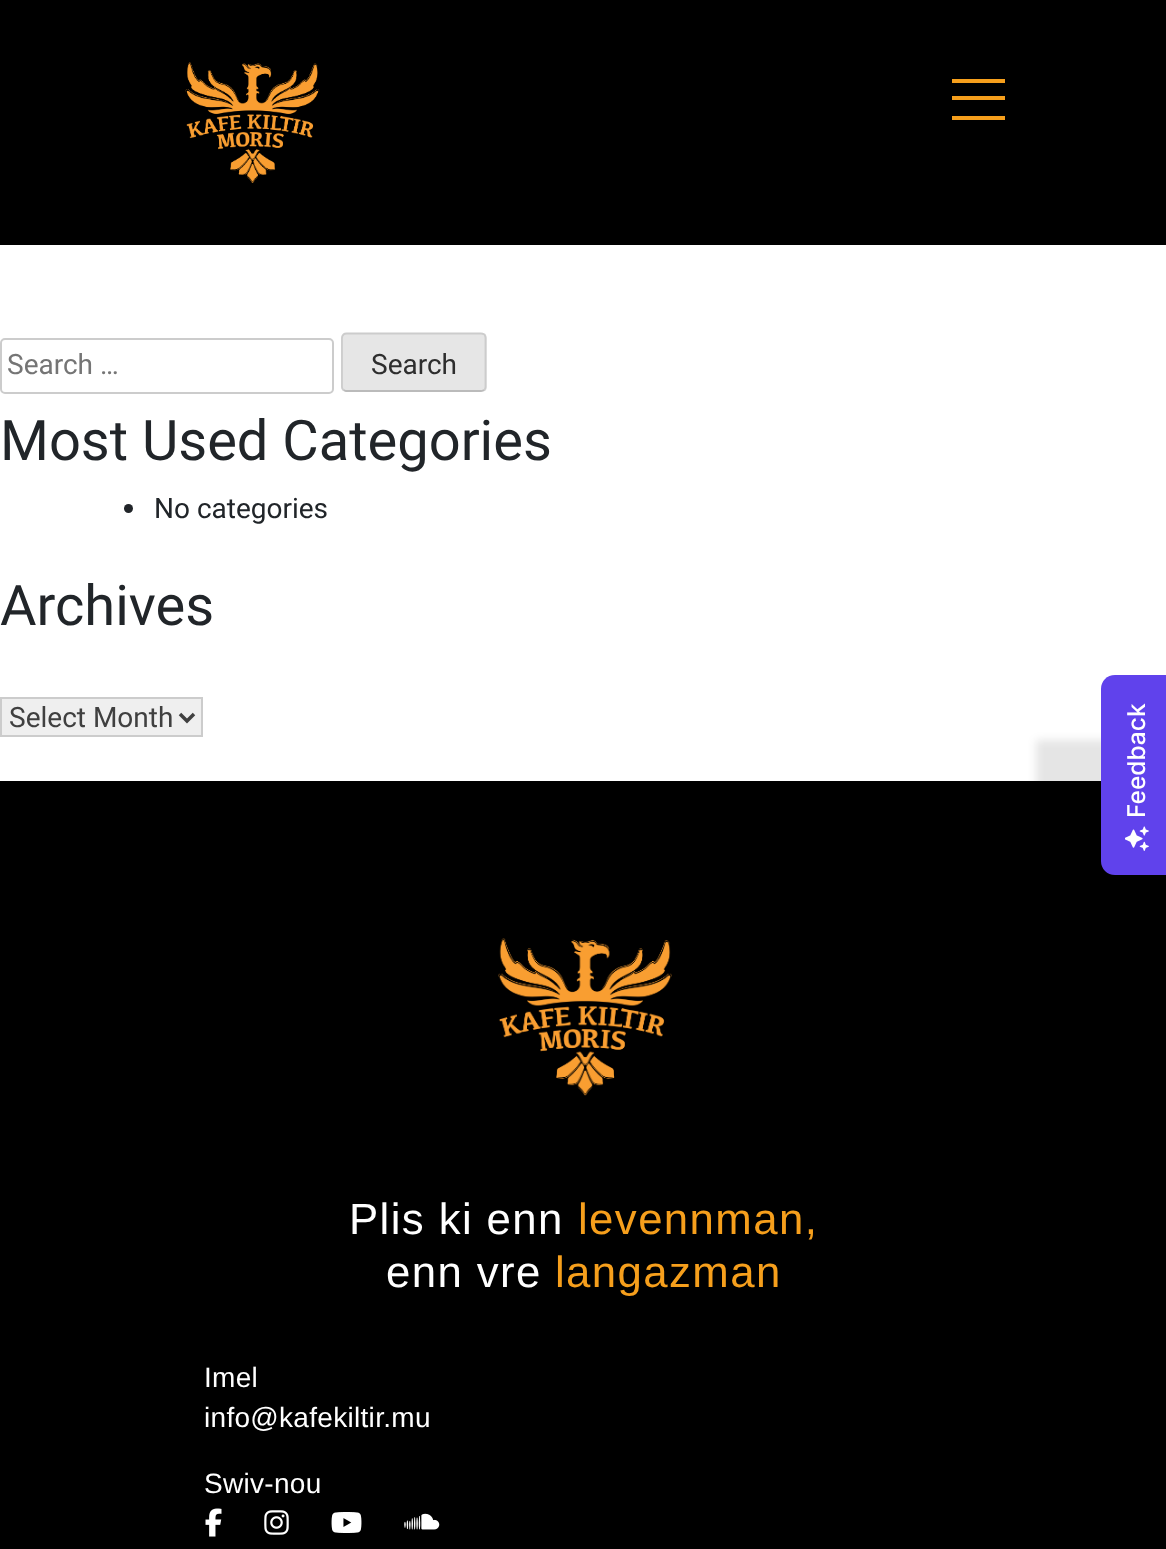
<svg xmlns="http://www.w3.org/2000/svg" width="1166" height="1549">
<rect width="100%" height="100%" fill="#fff"/>
<rect width="1166" height="245" fill="#000"/>
<image x="185" y="62" width="135" height="121" href="media/1.png"/>
<rect x="952" y="79" width="53" height="4" fill="#f69f1c"/>
<rect x="952" y="96" width="53" height="4" fill="#f69f1c"/>
<rect x="952" y="116" width="53" height="4" fill="#f69f1c"/>
<rect x="1" y="339" width="332" height="54" rx="4" fill="none" stroke="#ccc" stroke-width="2"/>
<text x="7" y="374" style="font-family:Roboto;font-size:28px;fill:#757575">Search …</text>
<rect x="341" y="333" width="146" height="59" rx="5" fill="#e6e6e6"/>
<path d="M484.5 390l-3.5 1h-135l-2.5-1" fill="none" stroke="#bbb" stroke-width="1.8"/>
<path d="M343.5 390c-1-1-1.5-2-1.5-3v-49c0-1.5 .5-2.5 1.5-3.5c.5-.5 2-1 3-1h134.5c1.5 0 2.5 .5 3.5 1c.5 1 1 2 1 3.5v49c0 1-.5 2-1 3" fill="none" stroke="#ccc" stroke-width="1.8"/>
<text x="371" y="374" style="font-family:Roboto;font-size:28px;fill:#2e2e2e">Search</text>
<text x="0" y="460" style="font-family:Roboto;font-size:56px;fill:#212529">Most Used Categories</text>
<circle cx="128.5" cy="508.5" r="4.5" fill="#212529"/>
<text x="154" y="518" style="font-family:Roboto;font-size:28px;fill:#212529">No categories</text>
<text x="0" y="625" style="font-family:Roboto;font-size:56px;fill:#212529">Archives</text>
<rect x="1" y="698" width="201" height="38" fill="#efefef" stroke="#ccc" stroke-width="2"/>
<path d="M180 714l7 7l7-7" fill="none" stroke="#404040" stroke-width="3.5"/>
<text x="9" y="727" style="font-family:Roboto;font-size:28px;fill:#404040">Select Month</text>
<rect y="781" width="1166" height="768" fill="#000"/>
<image x="498" y="938" width="174" height="158" href="media/2.png"/>
<text x="349" y="1234" style="font-family:Liberation Sans;font-size:43.75px;letter-spacing:1.4px;fill:#fff">Plis ki enn</text>
<text x="578" y="1234" style="font-family:Liberation Sans;font-size:43.75px;letter-spacing:1.4px;fill:#f69f1c">levennman,</text>
<text x="386" y="1287" style="font-family:Liberation Sans;font-size:43.75px;letter-spacing:1.4px;fill:#fff">enn vre</text>
<text x="555" y="1287" style="font-family:Liberation Sans;font-size:43.75px;letter-spacing:1.4px;fill:#f69f1c">langazman</text>
<text x="204" y="1387" style="font-family:Liberation Sans;font-size:28px;letter-spacing:0.3px;fill:#fff">Imel</text>
<text x="204" y="1427" style="font-family:Liberation Sans;font-size:28px;letter-spacing:0.3px;fill:#fff">info@kafekiltir.mu</text>
<text x="204" y="1493" style="font-family:Liberation Sans;font-size:28px;letter-spacing:0.3px;fill:#fff">Swiv-nou</text>
<image x="205" y="1508" width="17" height="29" href="media/3.png"/>
<image x="264" y="1510" width="25" height="25" href="media/4.png"/>
<image x="331" y="1512" width="31" height="21" href="media/5.png"/>
<image x="404" y="1513" width="36" height="17" href="media/6.png"/>
<rect x="1036" y="740" width="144" height="70" fill="#0000001a" filter="blur(4.5px)"/>
<path d="M1101 861v-172c0-8 6-14 14-14h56v200h-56c-8 0-14-6-14-14z" fill="#6042ec"/>
<text x="1145" y="818" transform="rotate(-90 1145 818)" style="font-family:Inter;font-size:24.5px;font-weight:500;fill:#fff">Feedback</text>
<image x="1125" y="826" width="24" height="25" href="media/7.png"/>
</svg>
